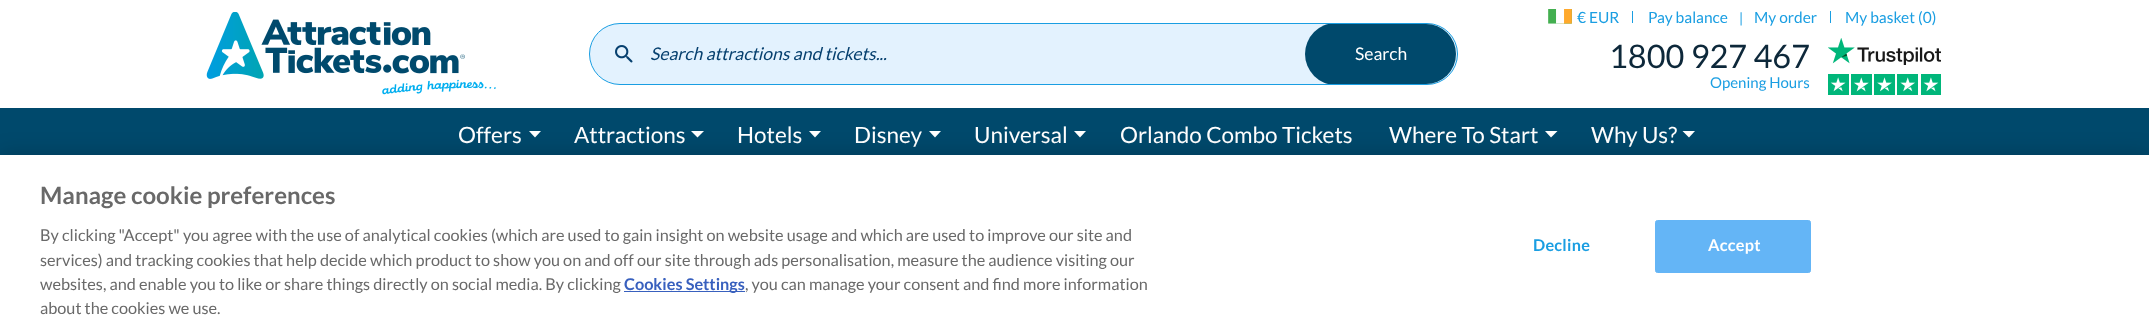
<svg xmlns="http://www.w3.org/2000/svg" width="2149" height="333">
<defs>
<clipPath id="clip1"><rect x="590" y="24" width="866" height="60" rx="30"/></clipPath>
</defs>
<rect width="100%" height="100%" fill="#fff"/>
<image x="206" y="12" width="290" height="83" href="media/1.png"/>
<image x="1548" y="9" width="24" height="15" href="media/2.png"/>
<text x="1577" y="23" style="font-family:Lato;font-size:15.5px;fill:#1a9ee2">€ EUR</text>
<rect x="1632" y="11" width="1" height="12" fill="#1a9ee2"/>
<text x="1648" y="23" style="font-family:Lato;font-size:15.5px;fill:#1a9ee2">Pay balance</text>
<text x="1739" y="23" style="font-family:Lato;font-size:14px;fill:#1a9ee2">|</text>
<text x="1754" y="23" style="font-family:Lato;font-size:15.5px;fill:#1a9ee2">My order</text>
<rect x="1830" y="11" width="1" height="12" fill="#1a9ee2"/>
<text x="1845" y="23" style="font-family:Lato;font-size:15.5px;fill:#1a9ee2">My basket (0)</text>
<rect x="589.5" y="23.5" width="868" height="61" rx="30.5" fill="#e3f2fe" stroke="#1a9ee2"/>
<image x="615" y="45" width="18" height="18" href="media/3.png"/>
<text x="650" y="60" style="font-family:Lato;font-size:17.5px;font-style:italic;fill:#06406f">Search attractions and tickets...</text>
<g clip-path="url(#clip1)">
<rect x="1305" y="23" width="153" height="62" rx="31" fill="#00496c"/>
</g>
<text x="1355" y="60" style="font-family:Lato;font-size:17.5px;fill:#fff">Search</text>
<text x="1609" y="68" style="font-family:Lato;font-size:32.5px;fill:#0d283a">1800 927 467</text>
<text x="1710" y="88" style="font-family:Lato;font-size:15px;fill:#1a9ee2">Opening Hours</text>
<image x="1828" y="38" width="113" height="27" href="media/4.png"/>
<image x="1828" y="74" width="113" height="21" href="media/5.png"/>
<rect y="108" width="2149" height="47" fill="#00496c"/>
<text x="458" y="143" style="font-family:Lato;font-size:22.5px;fill:#fff">Offers</text>
<path d="M529 131h12l-6 6.5z" fill="#fff"/>
<text x="574" y="143" style="font-family:Lato;font-size:22.5px;fill:#fff">Attractions</text>
<path d="M691 131h13l-6.5 6.5z" fill="#fff"/>
<text x="737" y="143" style="font-family:Lato;font-size:22.5px;fill:#fff">Hotels</text>
<path d="M809 131h12l-6 6.5z" fill="#fff"/>
<text x="854" y="143" style="font-family:Lato;font-size:22.5px;fill:#fff">Disney</text>
<path d="M929 131h12l-6 6.5z" fill="#fff"/>
<text x="974" y="143" style="font-family:Lato;font-size:22.5px;fill:#fff">Universal</text>
<path d="M1074 131h12l-6 6.5z" fill="#fff"/>
<text x="1120" y="143" style="font-family:Lato;font-size:22.5px;fill:#fff">Orlando Combo Tickets</text>
<text x="1389" y="143" style="font-family:Lato;font-size:22.5px;fill:#fff">Where To Start</text>
<path d="M1545 131h12.5l-6.5 6.5z" fill="#fff"/>
<text x="1591" y="143" style="font-family:Lato;font-size:22.5px;fill:#fff">Why Us?</text>
<path d="M1682.5 131h12.5l-6 6.5z" fill="#fff"/>
<rect y="155" width="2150" height="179" fill="#00000033" filter="blur(11px)"/>
<rect y="155" width="2149" height="178" fill="#fff"/>
<text x="40" y="204" style="font-family:Lato;font-size:24px;font-weight:bold;fill:#696969">Manage cookie preferences</text>
<text x="40" y="241" style="font-family:Lato;font-size:16.25px;fill:#696969">By clicking "Accept" you agree with the use of analytical cookies (which are used to gain insight on website usage and which are used to improve our site and</text>
<text x="40" y="266" style="font-family:Lato;font-size:16.25px;fill:#696969">services) and tracking cookies that help decide which product to show you on and off our site through ads personalisation, measure the audience visiting our</text>
<text x="40" y="290" style="font-family:Lato;font-size:16.25px;fill:#696969">websites, and enable you to like or share things directly on social media. By clicking</text>
<rect x="624" y="291" width="121" height="1" fill="#3860be"/>
<text x="624" y="290" style="font-family:Lato;font-size:16.25px;font-weight:bold;fill:#3860be">Cookies Settings</text>
<text x="745" y="290" style="font-family:Lato;font-size:16.25px;fill:#696969">, you can manage your consent and find more information</text>
<text x="40" y="314" style="font-family:Lato;font-size:16.25px;fill:#696969">about the cookies we use.</text>
<text x="1533" y="251" style="font-family:Lato;font-size:16.25px;font-weight:bold;letter-spacing:0.25px;fill:#1a9ee2">Decline</text>
<rect x="1655.5" y="220.5" width="155" height="52" rx="2" fill="#64b5f6" stroke="#64b5f6"/>
<text x="1708" y="251" style="font-family:Lato;font-size:16.25px;font-weight:bold;letter-spacing:0.25px;fill:#fff">Accept</text>
</svg>
